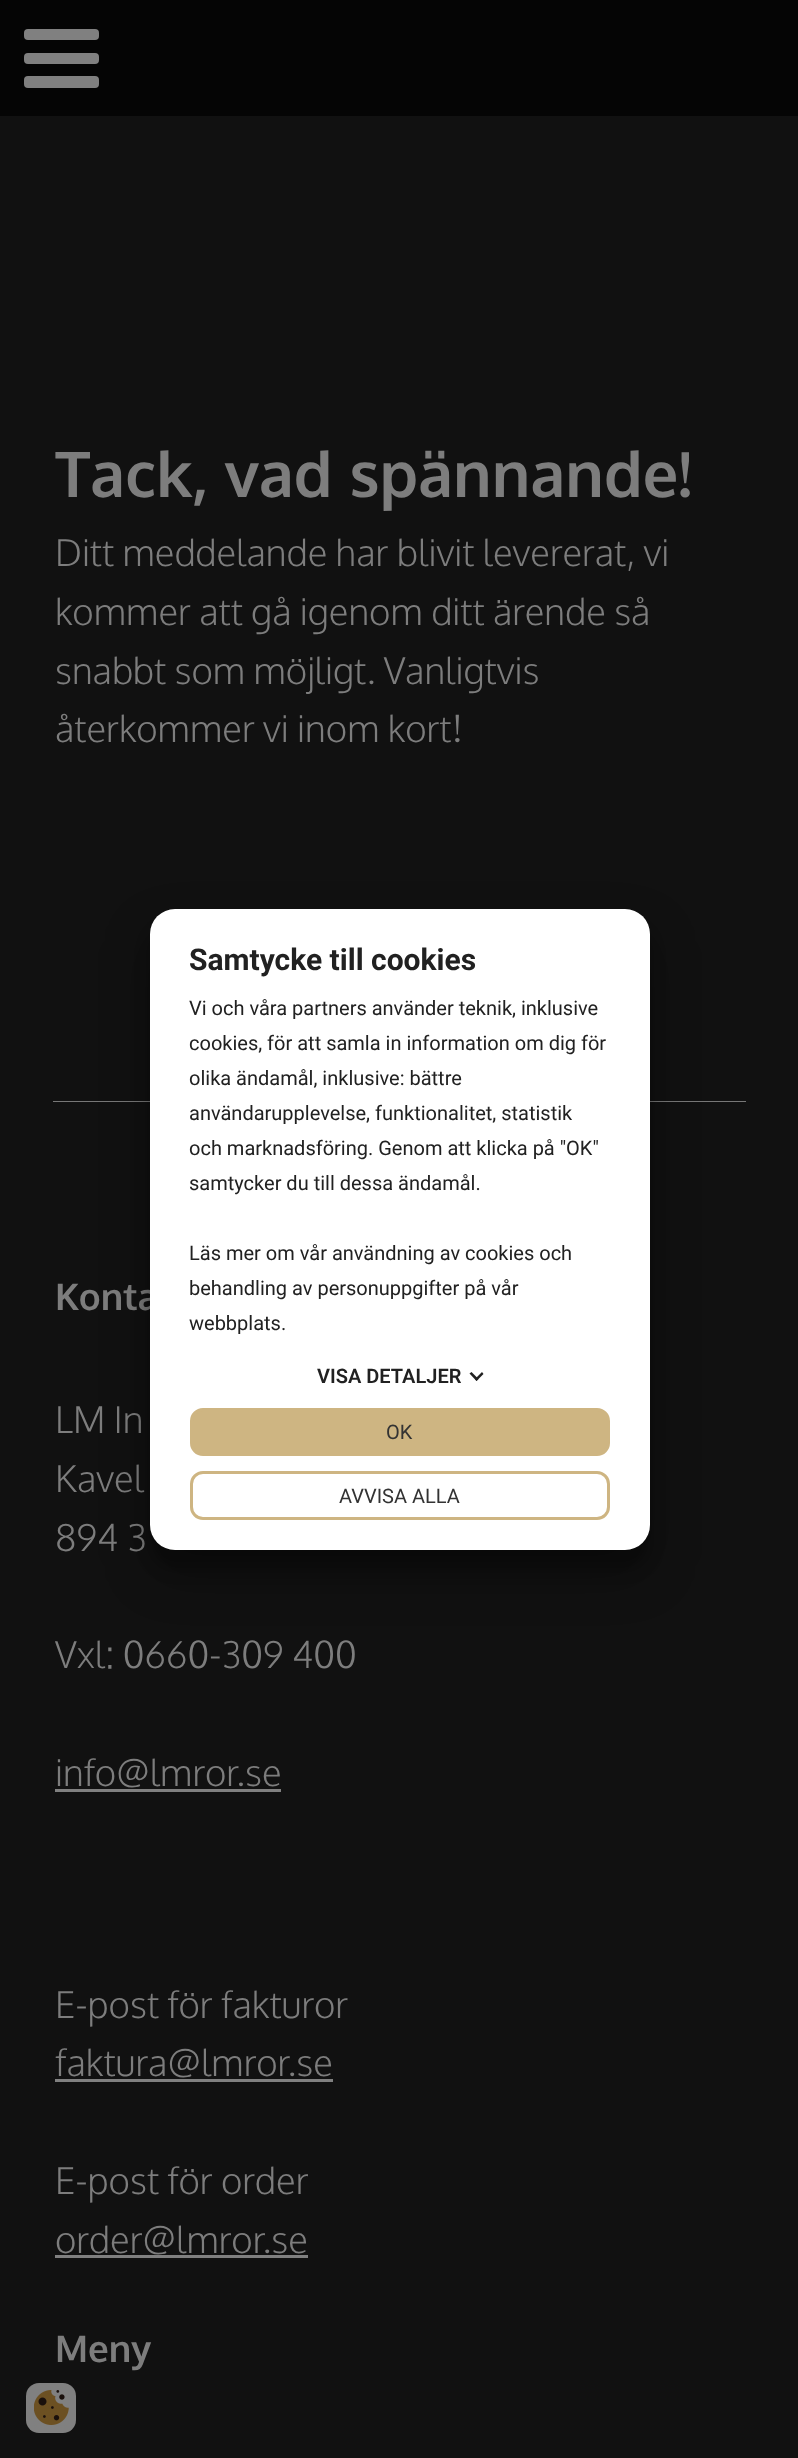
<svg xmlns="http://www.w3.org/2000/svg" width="798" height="2458">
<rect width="100%" height="100%" fill="#111"/>
<rect width="798" height="116" fill="#050505"/>
<rect x="24" y="29" width="75" height="11" rx="4" fill="#808080"/>
<rect x="24" y="53" width="75" height="11" rx="4" fill="#808080"/>
<rect x="24" y="76" width="75" height="12" rx="4" fill="#808080"/>
<text x="55" y="497" style="font-family:Oxygen;font-size:63px;font-weight:bold;fill:#7d7d7d">Tack, vad spännande!</text>
<text x="55" y="566" style="font-family:Oxygen;font-size:36.75px;font-weight:300;fill:#7d7d7d">Ditt meddelande har blivit levererat, vi</text>
<text x="55" y="625" style="font-family:Oxygen;font-size:36.75px;font-weight:300;fill:#7d7d7d">kommer att gå igenom ditt ärende så</text>
<text x="55" y="684" style="font-family:Oxygen;font-size:36.75px;font-weight:300;fill:#7d7d7d">snabbt som möjligt. Vanligtvis</text>
<text x="55" y="742" style="font-family:Oxygen;font-size:36.75px;font-weight:300;fill:#7d7d7d">återkommer vi inom kort!</text>
<rect x="53" y="1101" width="693" height="1" fill="#777"/>
<text x="55" y="1310" style="font-family:Oxygen;font-size:36.75px;font-weight:bold;fill:#7d7d7d">Konta</text>
<text x="55" y="1433" style="font-family:Oxygen;font-size:36.75px;font-weight:300;fill:#7d7d7d">LM In</text>
<text x="55" y="1492" style="font-family:Oxygen;font-size:36.75px;font-weight:300;fill:#7d7d7d">Kavel</text>
<text x="55" y="1551" style="font-family:Oxygen;font-size:36.75px;font-weight:300;fill:#7d7d7d">894 3</text>
<text x="55" y="1668" style="font-family:Oxygen;font-size:36.75px;font-weight:300;fill:#7d7d7d">Vxl: 0660-309 400</text>
<text x="55" y="1786" style="font-family:Oxygen;font-size:36.75px;font-weight:300;fill:#7d7d7d">info@lmror.se</text>
<rect x="55" y="1789" width="226" height="3" fill="#808080"/>
<text x="55" y="2018" style="font-family:Oxygen;font-size:36.75px;font-weight:300;fill:#7d7d7d">E-post för fakturor</text>
<text x="55" y="2076" style="font-family:Oxygen;font-size:36.75px;font-weight:300;fill:#7d7d7d">faktura@lmror.se</text>
<rect x="55" y="2079" width="278" height="3" fill="#808080"/>
<text x="55" y="2194" style="font-family:Oxygen;font-size:36.75px;font-weight:300;fill:#7d7d7d">E-post för order</text>
<text x="55" y="2253" style="font-family:Oxygen;font-size:36.75px;font-weight:300;fill:#7d7d7d">order@lmror.se</text>
<rect x="55" y="2255" width="253" height="3" fill="#808080"/>
<text x="55" y="2362" style="font-family:Oxygen;font-size:36.75px;font-weight:bold;fill:#7d7d7d">Meny</text>
<rect x="150" y="928" width="500" height="641" rx="25" fill="#00000038" filter="blur(7.5px)"/>
<rect x="150" y="933" width="500" height="641" rx="25" fill="#0000004d" filter="blur(24px)"/>
<rect x="150" y="909" width="500" height="641" rx="25" fill="#fff"/>
<text x="189" y="970" style="font-family:Roboto;font-size:30px;font-weight:bold;fill:#212121">Samtycke till cookies</text>
<text x="189" y="1015" style="font-family:Roboto;font-size:20px;fill:#212121">Vi och våra partners använder teknik, inklusive</text>
<text x="189" y="1050" style="font-family:Roboto;font-size:20px;fill:#212121">cookies, för att samla in information om dig för</text>
<text x="189" y="1085" style="font-family:Roboto;font-size:20px;fill:#212121">olika ändamål, inklusive: bättre</text>
<text x="189" y="1120" style="font-family:Roboto;font-size:20px;fill:#212121">användarupplevelse, funktionalitet, statistik</text>
<text x="189" y="1155" style="font-family:Roboto;font-size:20px;fill:#212121">och marknadsföring. Genom att klicka på "OK"</text>
<text x="189" y="1190" style="font-family:Roboto;font-size:20px;fill:#212121">samtycker du till dessa ändamål.</text>
<text x="189" y="1260" style="font-family:Roboto;font-size:20px;fill:#212121">Läs mer om vår användning av cookies och</text>
<text x="189" y="1295" style="font-family:Roboto;font-size:20px;fill:#212121">behandling av personuppgifter på vår</text>
<text x="189" y="1330" style="font-family:Roboto;font-size:20px;fill:#212121">webbplats.</text>
<text x="317" y="1383" style="font-family:Roboto;font-size:20px;font-weight:600;fill:#212121">VISA DETALJER</text>
<path d="M482 1372l1.5 2l-7 7l-1.5-2z" fill="#212121"/>
<path d="M471.5 1372l7 7l-2 2l-7-7.5z" fill="#212121"/>
<rect x="191.5" y="1409.5" width="417" height="45" rx="11.5" fill="#ceb582" stroke="#ceb582" stroke-width="3"/>
<text x="386" y="1439" style="font-family:Roboto;font-size:20px;fill:#333">OK</text>
<rect x="191.5" y="1472.5" width="417" height="46" rx="11.5" fill="none" stroke="#ceb582" stroke-width="3"/>
<text x="339" y="1503" style="font-family:Roboto;font-size:20px;fill:#333">AVVISA ALLA</text>
<rect x="26" y="2383" width="50" height="50" rx="13" fill="#808080"/>
<image x="34" y="2390" width="35" height="35" href="media/1.png"/>
</svg>
